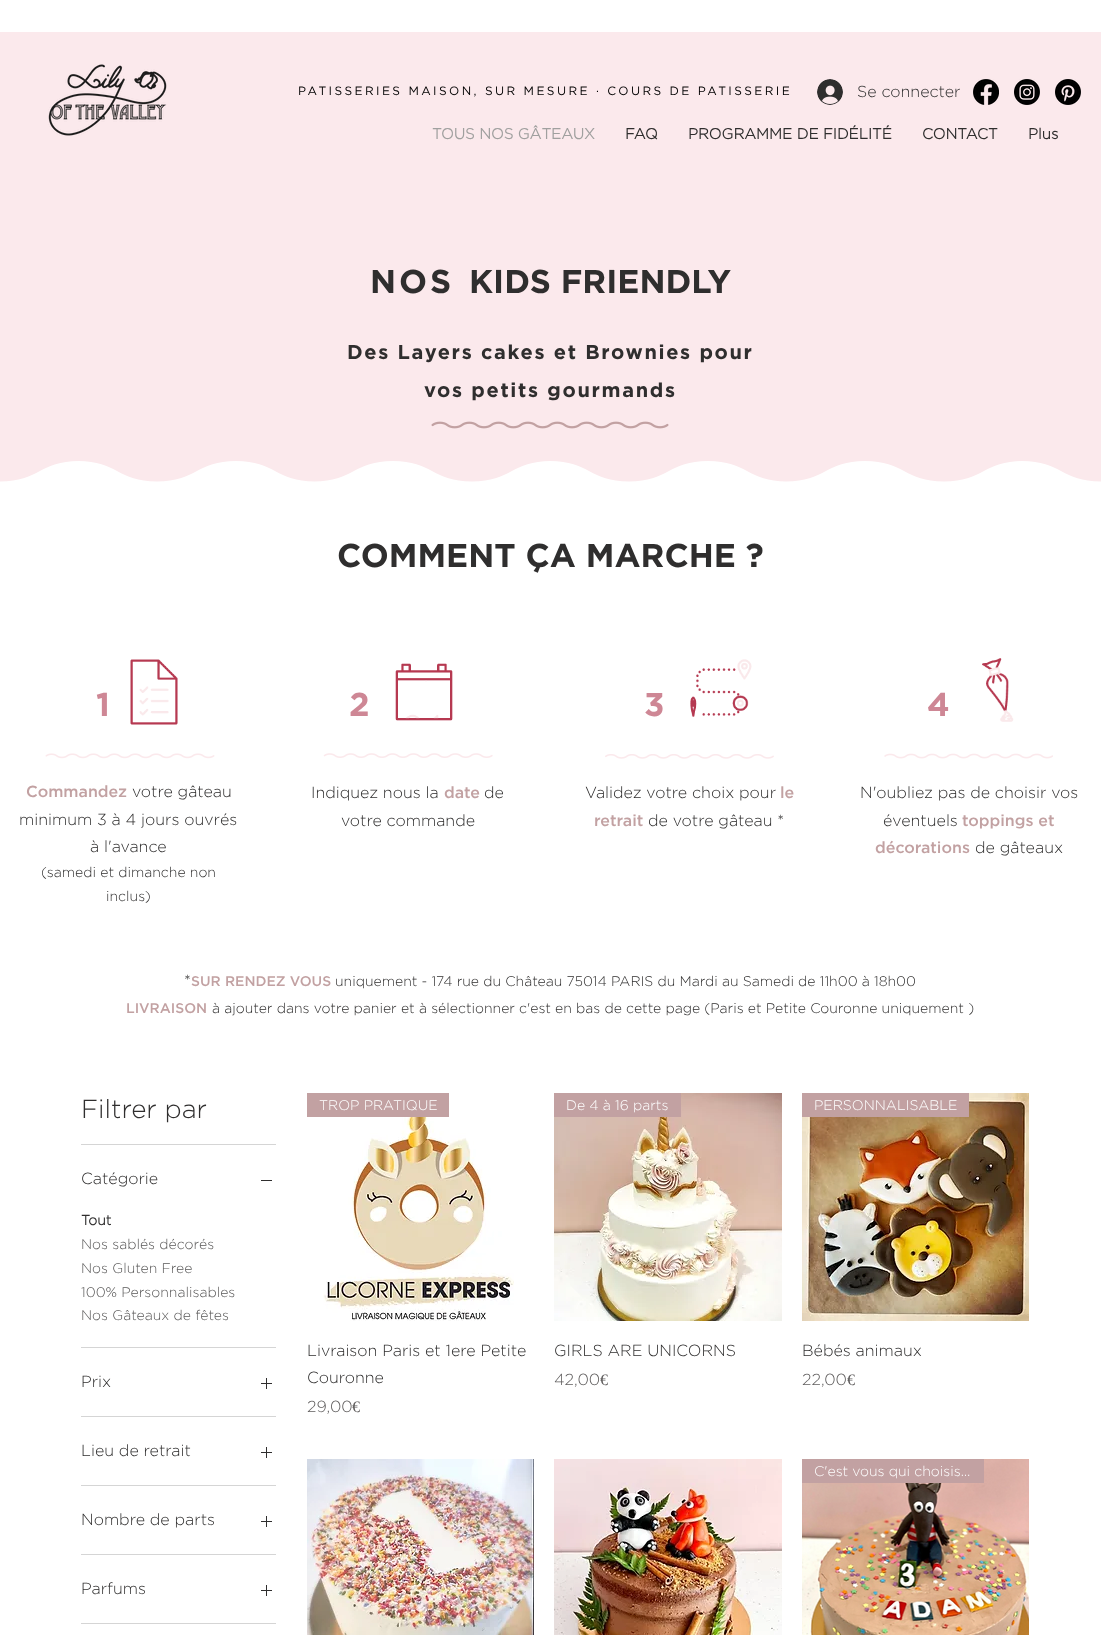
<svg xmlns="http://www.w3.org/2000/svg" width="1101" height="1635">
<rect width="100%" height="100%" fill="#fff"/>
<rect y="32" width="1101" height="450" fill="#fbe9ec"/>
<image x="48" y="64" width="119" height="72" href="media/1.png"/>
<text x="298" y="95" style="font-family:Gotham;font-size:12px;letter-spacing:2.4px;fill:#000">PATISSERIES MAISON, SUR MESURE · COURS DE PATISSERIE</text>
<image x="817" y="79" width="26" height="26" href="media/2.png"/>
<text x="857" y="97" style="font-family:Gotham;font-size:16px;font-weight:300;fill:#2f2e2e">Se connecter</text>
<image x="973" y="79" width="26" height="26" href="media/3.png"/>
<image x="1014" y="79" width="26" height="26" href="media/4.png"/>
<image x="1055" y="79" width="26" height="26" href="media/5.png"/>
<text x="432" y="139" style="font-family:'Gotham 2';font-size:15px;font-weight:bold;fill:#a0a09f">TOUS NOS GÂTEAUX</text>
<text x="625" y="139" style="font-family:'Gotham 2';font-size:15px;font-weight:bold;fill:#2f2e2e">FAQ</text>
<text x="688" y="139" style="font-family:'Gotham 2';font-size:15px;font-weight:bold;fill:#2f2e2e">PROGRAMME DE FIDÉLITÉ</text>
<text x="922" y="139" style="font-family:'Gotham 2';font-size:15px;font-weight:bold;fill:#2f2e2e">CONTACT</text>
<text x="1028" y="139" style="font-family:'Gotham 2';font-size:15px;font-weight:bold;fill:#2f2e2e">Plus</text>
<text x="370" y="293" style="font-family:Gotham;font-size:33px;font-weight:bold;letter-spacing:3px;fill:#2f2e2e">NOS</text>
<text x="469" y="293" style="font-family:Gotham;font-size:33px;font-weight:bold;fill:#2f2e2e">KIDS FRIENDLY</text>
<text x="347" y="359" style="font-family:Gotham;font-size:20px;font-weight:bold;letter-spacing:1.65px;fill:#2f2e2e">Des Layers cakes et Brownies pour</text>
<text x="424" y="397" style="font-family:Gotham;font-size:20px;font-weight:bold;letter-spacing:1.65px;fill:#2f2e2e">vos petits gourmands</text>
<image x="431" y="421" width="238" height="8" href="media/6.png"/>
<image x="0" y="461" width="1101" height="22" href="media/7.png"/>
<text x="337" y="567" style="font-family:Gotham;font-size:33px;font-weight:bold;fill:#2f2e2e">COMMENT ÇA MARCHE ?</text>
<text x="96" y="716" style="font-family:Gotham;font-size:33px;font-weight:bold;fill:#ce8795">1</text>
<image x="130" y="659" width="48" height="66" href="media/8.png"/>
<image x="45" y="753" width="170" height="6" href="media/9.png"/>
<text x="26" y="797" style="font-family:Gotham;font-size:16px;font-weight:500;fill:#c2a1a2">Commandez</text>
<text x="132" y="797" style="font-family:Gotham;font-size:16px;font-weight:300;fill:#2f2e2e">votre gâteau</text>
<text x="19" y="825" style="font-family:Gotham;font-size:16px;font-weight:300;fill:#2f2e2e">minimum 3 à 4 jours ouvrés</text>
<text x="90" y="852" style="font-family:Gotham;font-size:16px;font-weight:300;fill:#2f2e2e">à l'avance</text>
<text x="41" y="877" style="font-family:Gotham;font-size:14px;font-weight:300;fill:#2f2e2e">(samedi et dimanche non</text>
<text x="106" y="901" style="font-family:Gotham;font-size:14px;font-weight:300;fill:#2f2e2e">inclus)</text>
<text x="349" y="716" style="font-family:Gotham;font-size:33px;font-weight:bold;fill:#ce8795">2</text>
<image x="395" y="663" width="58" height="58" href="media/10.png"/>
<image x="323" y="753" width="170" height="5" href="media/11.png"/>
<text x="311" y="798" style="font-family:Gotham;font-size:16px;font-weight:300;fill:#2f2e2e">Indiquez nous la</text>
<text x="444" y="798" style="font-family:Gotham;font-size:16px;font-weight:500;fill:#c2a1a2">date</text>
<text x="484" y="798" style="font-family:Gotham;font-size:16px;font-weight:300;fill:#2f2e2e">de</text>
<text x="341" y="826" style="font-family:Gotham;font-size:16px;font-weight:300;fill:#2f2e2e">votre commande</text>
<text x="644" y="716" style="font-family:Gotham;font-size:33px;font-weight:bold;fill:#ce8795">3</text>
<image x="690" y="659" width="62" height="58" href="media/12.png"/>
<image x="605" y="754" width="169" height="5" href="media/13.png"/>
<text x="585" y="798" style="font-family:Gotham;font-size:16px;font-weight:300;fill:#2f2e2e">Validez votre choix pour</text>
<text x="780" y="798" style="font-family:Gotham;font-size:16px;font-weight:500;fill:#c2a1a2">le</text>
<text x="594" y="826" style="font-family:Gotham;font-size:16px;font-weight:500;fill:#c2a1a2">retrait</text>
<text x="648" y="826" style="font-family:Gotham;font-size:16px;font-weight:300;fill:#2f2e2e">de votre gâteau *</text>
<text x="927" y="716" style="font-family:Gotham;font-size:33px;font-weight:bold;fill:#ce8795">4</text>
<image x="982" y="658" width="32" height="64" href="media/14.png"/>
<image x="884" y="753" width="169" height="6" href="media/15.png"/>
<text x="860" y="798" style="font-family:Gotham;font-size:16px;font-weight:300;fill:#2f2e2e">N'oubliez pas de choisir vos</text>
<text x="883" y="826" style="font-family:Gotham;font-size:16px;font-weight:300;fill:#2f2e2e">éventuels</text>
<text x="962" y="826" style="font-family:Gotham;font-size:16px;font-weight:500;fill:#c2a1a2">toppings et</text>
<text x="875" y="853" style="font-family:Gotham;font-size:16px;font-weight:500;fill:#c2a1a2">décorations</text>
<text x="975" y="853" style="font-family:Gotham;font-size:16px;font-weight:300;fill:#2f2e2e">de gâteaux</text>
<text x="184" y="986" style="font-family:Gotham;font-size:16px;font-weight:300;fill:#2f2e2e">*</text>
<text x="191" y="986" style="font-family:Gotham;font-size:14px;font-weight:500;fill:#c2a1a2">SUR RENDEZ VOUS</text>
<text x="335" y="986" style="font-family:Gotham;font-size:14px;font-weight:300;fill:#2f2e2e">uniquement - 174 rue du Château 75014 PARIS du Mardi au Samedi de 11h00 à 18h00</text>
<text x="126" y="1013" style="font-family:Gotham;font-size:14px;font-weight:500;fill:#c2a1a2">LIVRAISON</text>
<text x="212" y="1013" style="font-family:Gotham;font-size:14px;font-weight:300;fill:#2f2e2e">à ajouter dans votre panier et à sélectionner c'est en bas de cette page (Paris et Petite Couronne uniquement )</text>
<rect x="81" y="1144" width="195" height="1" fill="#d5d5d5"/>
<text x="81" y="1118" style="font-family:Gotham;font-size:26px;font-weight:300;fill:#2f2e2e">Filtrer par</text>
<rect x="81" y="1347" width="195" height="1" fill="#d5d5d5"/>
<text x="81" y="1184" style="font-family:Gotham;font-size:16px;font-weight:300;fill:#2f2e2e">Catégorie</text>
<rect x="261" y="1180" width="11" height="1" fill="#2f2e2e"/>
<text x="81" y="1225" style="font-family:'Gotham 2';font-size:14px;font-weight:bold;fill:#2f2e2e">Tout</text>
<text x="81" y="1249" style="font-family:Gotham;font-size:14px;font-weight:300;fill:#595858">Nos sablés décorés</text>
<text x="81" y="1273" style="font-family:Gotham;font-size:14px;font-weight:300;fill:#595858">Nos Gluten Free</text>
<text x="81" y="1297" style="font-family:Gotham;font-size:14px;font-weight:300;fill:#595858">100% Personnalisables</text>
<text x="81" y="1320" style="font-family:Gotham;font-size:14px;font-weight:300;fill:#595858">Nos Gâteaux de fêtes</text>
<rect x="81" y="1416" width="195" height="1" fill="#d5d5d5"/>
<text x="81" y="1387" style="font-family:Gotham;font-size:16px;font-weight:300;fill:#2f2e2e">Prix</text>
<image x="261" y="1378" width="11" height="11" href="media/16.png"/>
<rect x="81" y="1485" width="195" height="1" fill="#d5d5d5"/>
<text x="81" y="1456" style="font-family:Gotham;font-size:16px;font-weight:300;fill:#2f2e2e">Lieu de retrait</text>
<image x="261" y="1447" width="11" height="11" href="media/16.png"/>
<rect x="81" y="1554" width="195" height="1" fill="#d5d5d5"/>
<text x="81" y="1525" style="font-family:Gotham;font-size:16px;font-weight:300;fill:#2f2e2e">Nombre de parts</text>
<image x="261" y="1516" width="11" height="11" href="media/16.png"/>
<rect x="81" y="1623" width="195" height="1" fill="#d5d5d5"/>
<text x="81" y="1594" style="font-family:Gotham;font-size:16px;font-weight:300;fill:#2f2e2e">Parfums</text>
<image x="261" y="1585" width="11" height="11" href="media/16.png"/>
<image x="323" y="1093" width="191" height="228" href="media/17.png"/>
<rect x="307" y="1093" width="142" height="24" fill="#c2a1a2"/>
<text x="319" y="1110" style="font-family:Gotham;font-size:14px;font-weight:300;fill:#fff">TROP PRATIQUE</text>
<text x="307" y="1356" style="font-family:Gotham;font-size:16px;font-weight:300;fill:#2f2e2e">Livraison Paris et 1ere Petite</text>
<text x="307" y="1383" style="font-family:Gotham;font-size:16px;font-weight:300;fill:#2f2e2e">Couronne</text>
<text x="307" y="1412" style="font-family:Gotham;font-size:16px;font-weight:300;fill:#605e5e">29,00</text>
<text x="352" y="1412" style="font-family:Liberation Serif;font-size:16px;fill:#605e5e">€</text>
<image x="554" y="1093" width="228" height="228" href="media/18.png"/>
<rect x="554" y="1093" width="127" height="24" fill="#c2a1a2"/>
<text x="566" y="1110" style="font-family:Gotham;font-size:14px;font-weight:300;fill:#fff">De 4 à 16 parts</text>
<text x="554" y="1356" style="font-family:Gotham;font-size:16px;font-weight:300;fill:#2f2e2e">GIRLS ARE UNICORNS</text>
<text x="554" y="1385" style="font-family:Gotham;font-size:16px;font-weight:300;fill:#605e5e">42,00</text>
<text x="600" y="1385" style="font-family:Liberation Serif;font-size:16px;fill:#605e5e">€</text>
<image x="802" y="1093" width="227" height="228" href="media/19.png"/>
<rect x="802" y="1093" width="167" height="24" fill="#c2a1a2"/>
<text x="814" y="1110" style="font-family:Gotham;font-size:14px;font-weight:300;fill:#fff">PERSONNALISABLE</text>
<text x="802" y="1356" style="font-family:Gotham;font-size:16px;font-weight:300;fill:#2f2e2e">Bébés animaux</text>
<text x="802" y="1385" style="font-family:Gotham;font-size:16px;font-weight:300;fill:#605e5e">22,00</text>
<text x="847" y="1385" style="font-family:Liberation Serif;font-size:16px;fill:#605e5e">€</text>
<image x="307" y="1459" width="227" height="176" href="media/20.png"/>
<image x="554" y="1459" width="228" height="176" href="media/21.png"/>
<image x="802" y="1459" width="227" height="176" href="media/22.png"/>
<rect x="802" y="1459" width="182" height="24" fill="#c2a1a2"/>
<text x="814" y="1476" style="font-family:Gotham;font-size:14px;font-weight:300;fill:#fff">C'est vous qui choisis…</text>
</svg>
